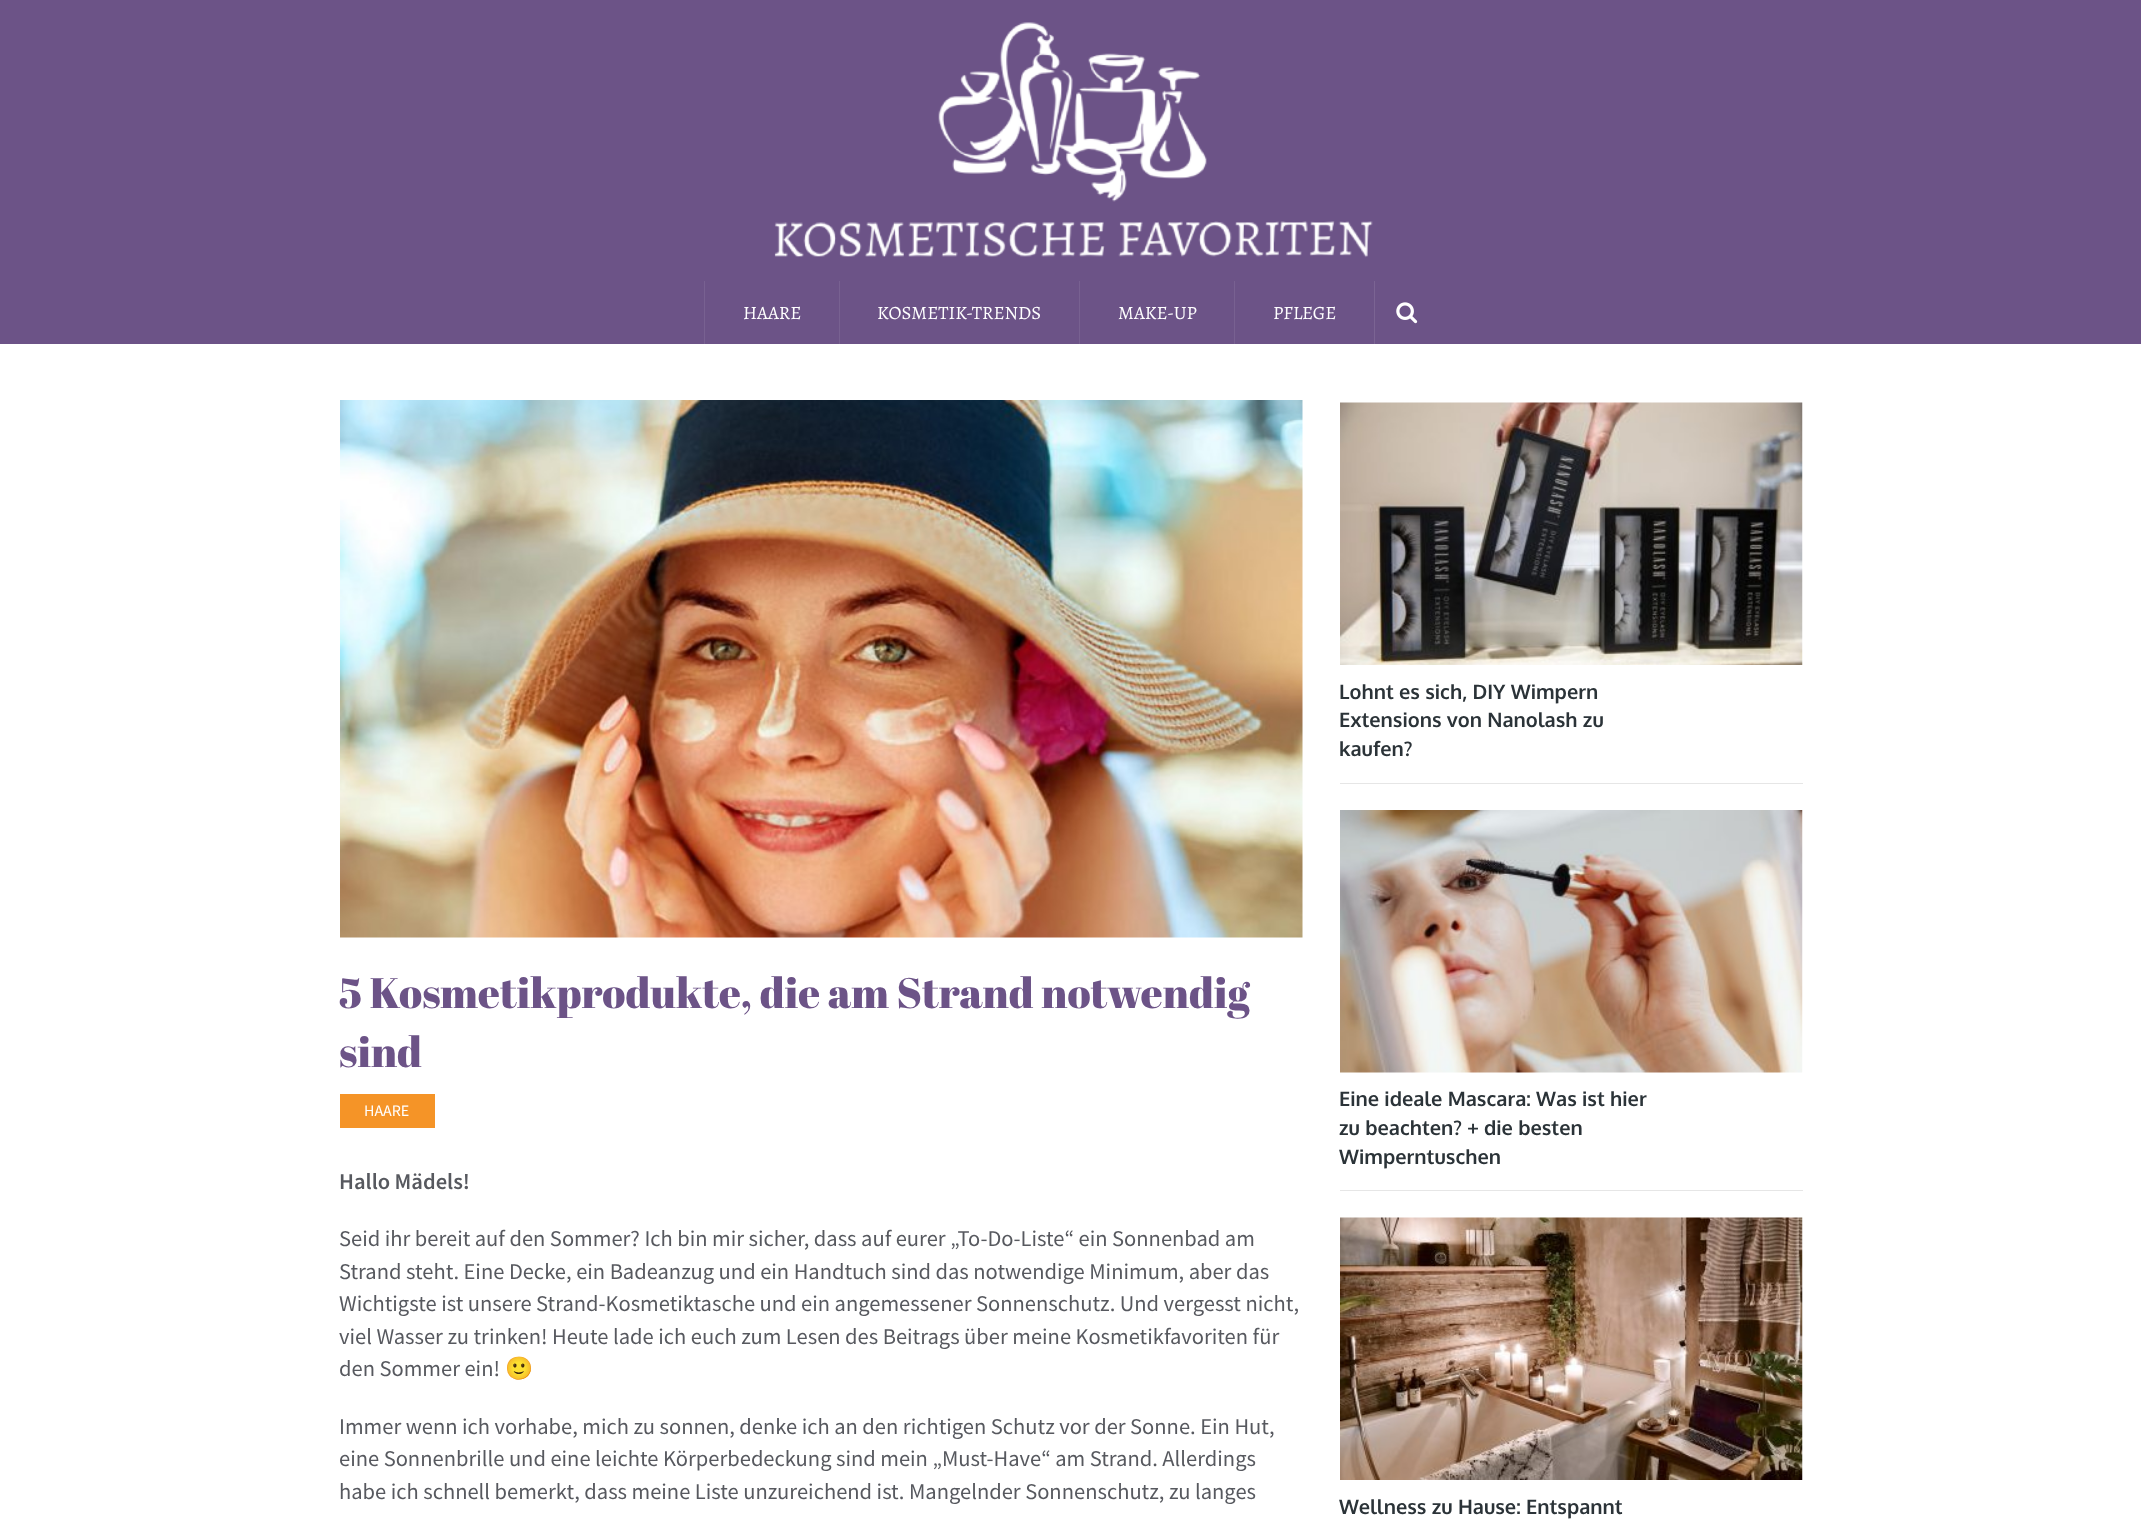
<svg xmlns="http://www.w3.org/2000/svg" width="2141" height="1526">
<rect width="100%" height="100%" fill="#fff"/>
<rect width="2141" height="344" fill="#6c5387"/>
<image x="774" y="22" width="599" height="236" href="media/1.png"/>
<rect x="704" y="281" width="1" height="63" fill="#786191"/>
<text x="743" y="319" style="font-family:Alegreya;font-size:18.75px;fill:#fff">HAARE</text>
<rect x="839" y="281" width="1" height="63" fill="#786191"/>
<text x="877" y="319" style="font-family:Alegreya;font-size:18.75px;fill:#fff">KOSMETIK-TRENDS</text>
<rect x="1079" y="281" width="1" height="63" fill="#786191"/>
<text x="1118" y="319" style="font-family:Alegreya;font-size:18.75px;fill:#fff">MAKE-UP</text>
<rect x="1234" y="281" width="1" height="63" fill="#786191"/>
<text x="1273" y="319" style="font-family:Alegreya;font-size:18.75px;fill:#fff">PFLEGE</text>
<rect x="1374" y="281" width="1" height="63" fill="#7b6493"/>
<image x="1396" y="302" width="22" height="22" href="media/2.png"/>
<image x="340" y="400" width="963" height="538" href="media/3.png"/>
<text x="339" y="1008" style="font-family:Abril Fatface;font-size:42.5px;fill:#6c5387">5 Kosmetikprodukte, die am Strand notwendig</text>
<text x="339" y="1067" style="font-family:Abril Fatface;font-size:42.5px;fill:#6c5387">sind</text>
<rect x="340" y="1094" width="95" height="34" fill="#f59427"/>
<text x="364" y="1116" style="font-family:Source Sans Pro;font-size:16px;fill:#fff">HAARE</text>
<text x="339" y="1189" style="font-family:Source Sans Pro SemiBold;font-size:22.5px;font-weight:600;fill:#57595f">Hallo Mädels!</text>
<text x="339" y="1246" style="font-family:Source Sans Pro;font-size:22.5px;fill:#57595f">Seid ihr bereit auf den Sommer? Ich bin mir sicher, dass auf eurer „To-Do-Liste“ ein Sonnenbad am</text>
<text x="339" y="1279" style="font-family:Source Sans Pro;font-size:22.5px;fill:#57595f">Strand steht. Eine Decke, ein Badeanzug und ein Handtuch sind das notwendige Minimum, aber das</text>
<text x="339" y="1311" style="font-family:Source Sans Pro;font-size:22.5px;fill:#57595f">Wichtigste ist unsere Strand-Kosmetiktasche und ein angemessener Sonnenschutz. Und vergesst nicht,</text>
<text x="339" y="1344" style="font-family:Source Sans Pro;font-size:22.5px;fill:#57595f">viel Wasser zu trinken! Heute lade ich euch zum Lesen des Beitrags über meine Kosmetikfavoriten für</text>
<text x="339" y="1376" style="font-family:Source Sans Pro;font-size:22.5px;fill:#57595f">den Sommer ein!</text>
<text x="505" y="1376" style="font-family:Noto Color Emoji;font-size:22.5px;fill:#57595f">🙂</text>
<text x="339" y="1434" style="font-family:Source Sans Pro;font-size:22.5px;fill:#57595f">Immer wenn ich vorhabe, mich zu sonnen, denke ich an den richtigen Schutz vor der Sonne. Ein Hut,</text>
<text x="339" y="1466" style="font-family:Source Sans Pro;font-size:22.5px;fill:#57595f">eine Sonnenbrille und eine leichte Körperbedeckung sind mein „Must-Have“ am Strand. Allerdings</text>
<text x="339" y="1499" style="font-family:Source Sans Pro;font-size:22.5px;fill:#57595f">habe ich schnell bemerkt, dass meine Liste unzureichend ist. Mangelnder Sonnenschutz, zu langes</text>
<rect x="1340" y="783" width="463" height="1" fill="#e6e6e6"/>
<image x="1340" y="402" width="463" height="263" href="media/4.png"/>
<text x="1339" y="699" style="font-family:Oxygen;font-size:20px;font-weight:bold;fill:#2b3338">Lohnt es sich, DIY Wimpern</text>
<text x="1339" y="727" style="font-family:Oxygen;font-size:20px;font-weight:bold;fill:#2b3338">Extensions von Nanolash zu</text>
<text x="1339" y="756" style="font-family:Oxygen;font-size:20px;font-weight:bold;fill:#2b3338">kaufen?</text>
<rect x="1340" y="1190" width="463" height="1" fill="#e6e6e6"/>
<image x="1340" y="810" width="463" height="263" href="media/5.png"/>
<text x="1339" y="1106" style="font-family:Oxygen;font-size:20px;font-weight:bold;fill:#2b3338">Eine ideale Mascara: Was ist hier</text>
<text x="1339" y="1135" style="font-family:Oxygen;font-size:20px;font-weight:bold;fill:#2b3338">zu beachten? + die besten</text>
<text x="1339" y="1164" style="font-family:Oxygen;font-size:20px;font-weight:bold;fill:#2b3338">Wimperntuschen</text>
<image x="1340" y="1217" width="463" height="263" href="media/6.png"/>
<text x="1339" y="1514" style="font-family:Oxygen;font-size:20px;font-weight:bold;fill:#2b3338">Wellness zu Hause: Entspannt</text>
</svg>
